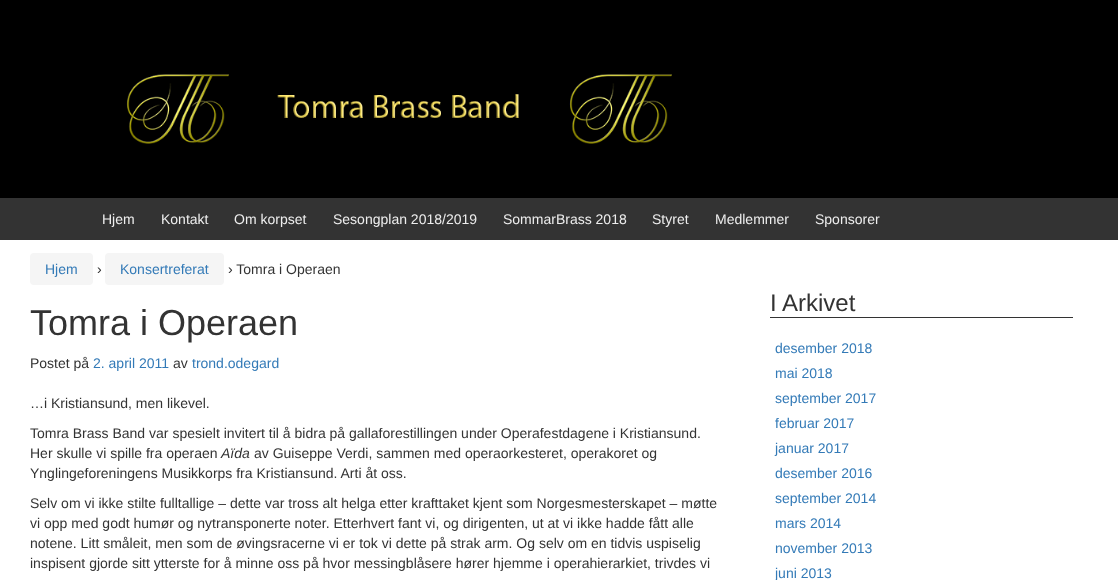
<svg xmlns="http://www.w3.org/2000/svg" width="1118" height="580">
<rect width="100%" height="100%" fill="#000"/>
<image x="126" y="74" width="546" height="70" href="media/1.png"/>
<rect y="198" width="1118" height="42" fill="#333"/>
<text x="102" y="224" style="font-family:Liberation Sans;font-size:14px;fill:#eee">Hjem</text>
<text x="161" y="224" style="font-family:Liberation Sans;font-size:14px;fill:#eee">Kontakt</text>
<text x="234" y="224" style="font-family:Liberation Sans;font-size:14px;fill:#eee">Om korpset</text>
<text x="333" y="224" style="font-family:Liberation Sans;font-size:14px;fill:#eee">Sesongplan 2018/2019</text>
<text x="503" y="224" style="font-family:Liberation Sans;font-size:14px;fill:#eee">SommarBrass 2018</text>
<text x="652" y="224" style="font-family:Liberation Sans;font-size:14px;fill:#eee">Styret</text>
<text x="715" y="224" style="font-family:Liberation Sans;font-size:14px;fill:#eee">Medlemmer</text>
<text x="815" y="224" style="font-family:Liberation Sans;font-size:14px;fill:#eee">Sponsorer</text>
<rect y="240" width="1118" height="340" fill="#fff"/>
<rect x="30" y="253" width="63" height="32" rx="4" fill="#f5f5f5"/>
<text x="45" y="274" style="font-family:Liberation Sans;font-size:14px;fill:#337ab7">Hjem</text>
<text x="97" y="274" style="font-family:Liberation Sans;font-size:14px;fill:#333">›</text>
<rect x="105" y="253" width="119" height="32" rx="4" fill="#f5f5f5"/>
<text x="120" y="274" style="font-family:Liberation Sans;font-size:14px;fill:#337ab7">Konsertreferat</text>
<text x="228" y="274" style="font-family:Liberation Sans;font-size:14px;fill:#333">› Tomra i Operaen</text>
<text x="30" y="335" style="font-family:Liberation Sans;font-size:36px;fill:#333">Tomra i Operaen</text>
<text x="30" y="368" style="font-family:Liberation Sans;font-size:14px;fill:#333">Postet på</text>
<text x="93" y="368" style="font-family:Liberation Sans;font-size:14px;fill:#337ab7">2. april 2011</text>
<text x="173" y="368" style="font-family:Liberation Sans;font-size:14px;fill:#333">av</text>
<text x="192" y="368" style="font-family:Liberation Sans;font-size:14px;fill:#337ab7">trond.odegard</text>
<text x="30" y="408" style="font-family:Liberation Sans;font-size:14px;fill:#333">…i Kristiansund, men likevel.</text>
<text x="30" y="438" style="font-family:Liberation Sans;font-size:14px;fill:#333">Tomra Brass Band var spesielt invitert til å bidra på gallaforestillingen under Operafestdagene i Kristiansund.</text>
<text x="30" y="458" style="font-family:Liberation Sans;font-size:14px;fill:#333">Her skulle vi spille fra operaen</text>
<text x="221" y="458" style="font-family:Liberation Sans;font-size:14px;font-style:italic;fill:#333">Aïda</text>
<text x="254" y="458" style="font-family:Liberation Sans;font-size:14px;fill:#333">av Guiseppe Verdi, sammen med operaorkesteret, operakoret og</text>
<text x="30" y="478" style="font-family:Liberation Sans;font-size:14px;fill:#333">Ynglingeforeningens Musikkorps fra Kristiansund. Arti åt oss.</text>
<text x="30" y="508" style="font-family:Liberation Sans;font-size:14px;fill:#333">Selv om vi ikke stilte fulltallige – dette var tross alt helga etter krafttaket kjent som Norgesmesterskapet – møtte</text>
<text x="30" y="528" style="font-family:Liberation Sans;font-size:14px;fill:#333">vi opp med godt humør og nytransponerte noter. Etterhvert fant vi, og dirigenten, ut at vi ikke hadde fått alle</text>
<text x="30" y="548" style="font-family:Liberation Sans;font-size:14px;fill:#333">notene. Litt småleit, men som de øvingsracerne vi er tok vi dette på strak arm. Og selv om en tidvis uspiselig</text>
<text x="30" y="568" style="font-family:Liberation Sans;font-size:14px;fill:#333">inspisent gjorde sitt ytterste for å minne oss på hvor messingblåsere hører hjemme i operahierarkiet, trivdes vi</text>
<rect x="770" y="317" width="303" height="1" fill="#333"/>
<text x="770" y="311" style="font-family:Liberation Sans;font-size:24px;fill:#333">I Arkivet</text>
<text x="775" y="353" style="font-family:Liberation Sans;font-size:14px;fill:#337ab7">desember 2018</text>
<text x="775" y="378" style="font-family:Liberation Sans;font-size:14px;fill:#337ab7">mai 2018</text>
<text x="775" y="403" style="font-family:Liberation Sans;font-size:14px;fill:#337ab7">september 2017</text>
<text x="775" y="428" style="font-family:Liberation Sans;font-size:14px;fill:#337ab7">februar 2017</text>
<text x="775" y="453" style="font-family:Liberation Sans;font-size:14px;fill:#337ab7">januar 2017</text>
<text x="775" y="478" style="font-family:Liberation Sans;font-size:14px;fill:#337ab7">desember 2016</text>
<text x="775" y="503" style="font-family:Liberation Sans;font-size:14px;fill:#337ab7">september 2014</text>
<text x="775" y="528" style="font-family:Liberation Sans;font-size:14px;fill:#337ab7">mars 2014</text>
<text x="775" y="553" style="font-family:Liberation Sans;font-size:14px;fill:#337ab7">november 2013</text>
<text x="775" y="578" style="font-family:Liberation Sans;font-size:14px;fill:#337ab7">juni 2013</text>
</svg>
